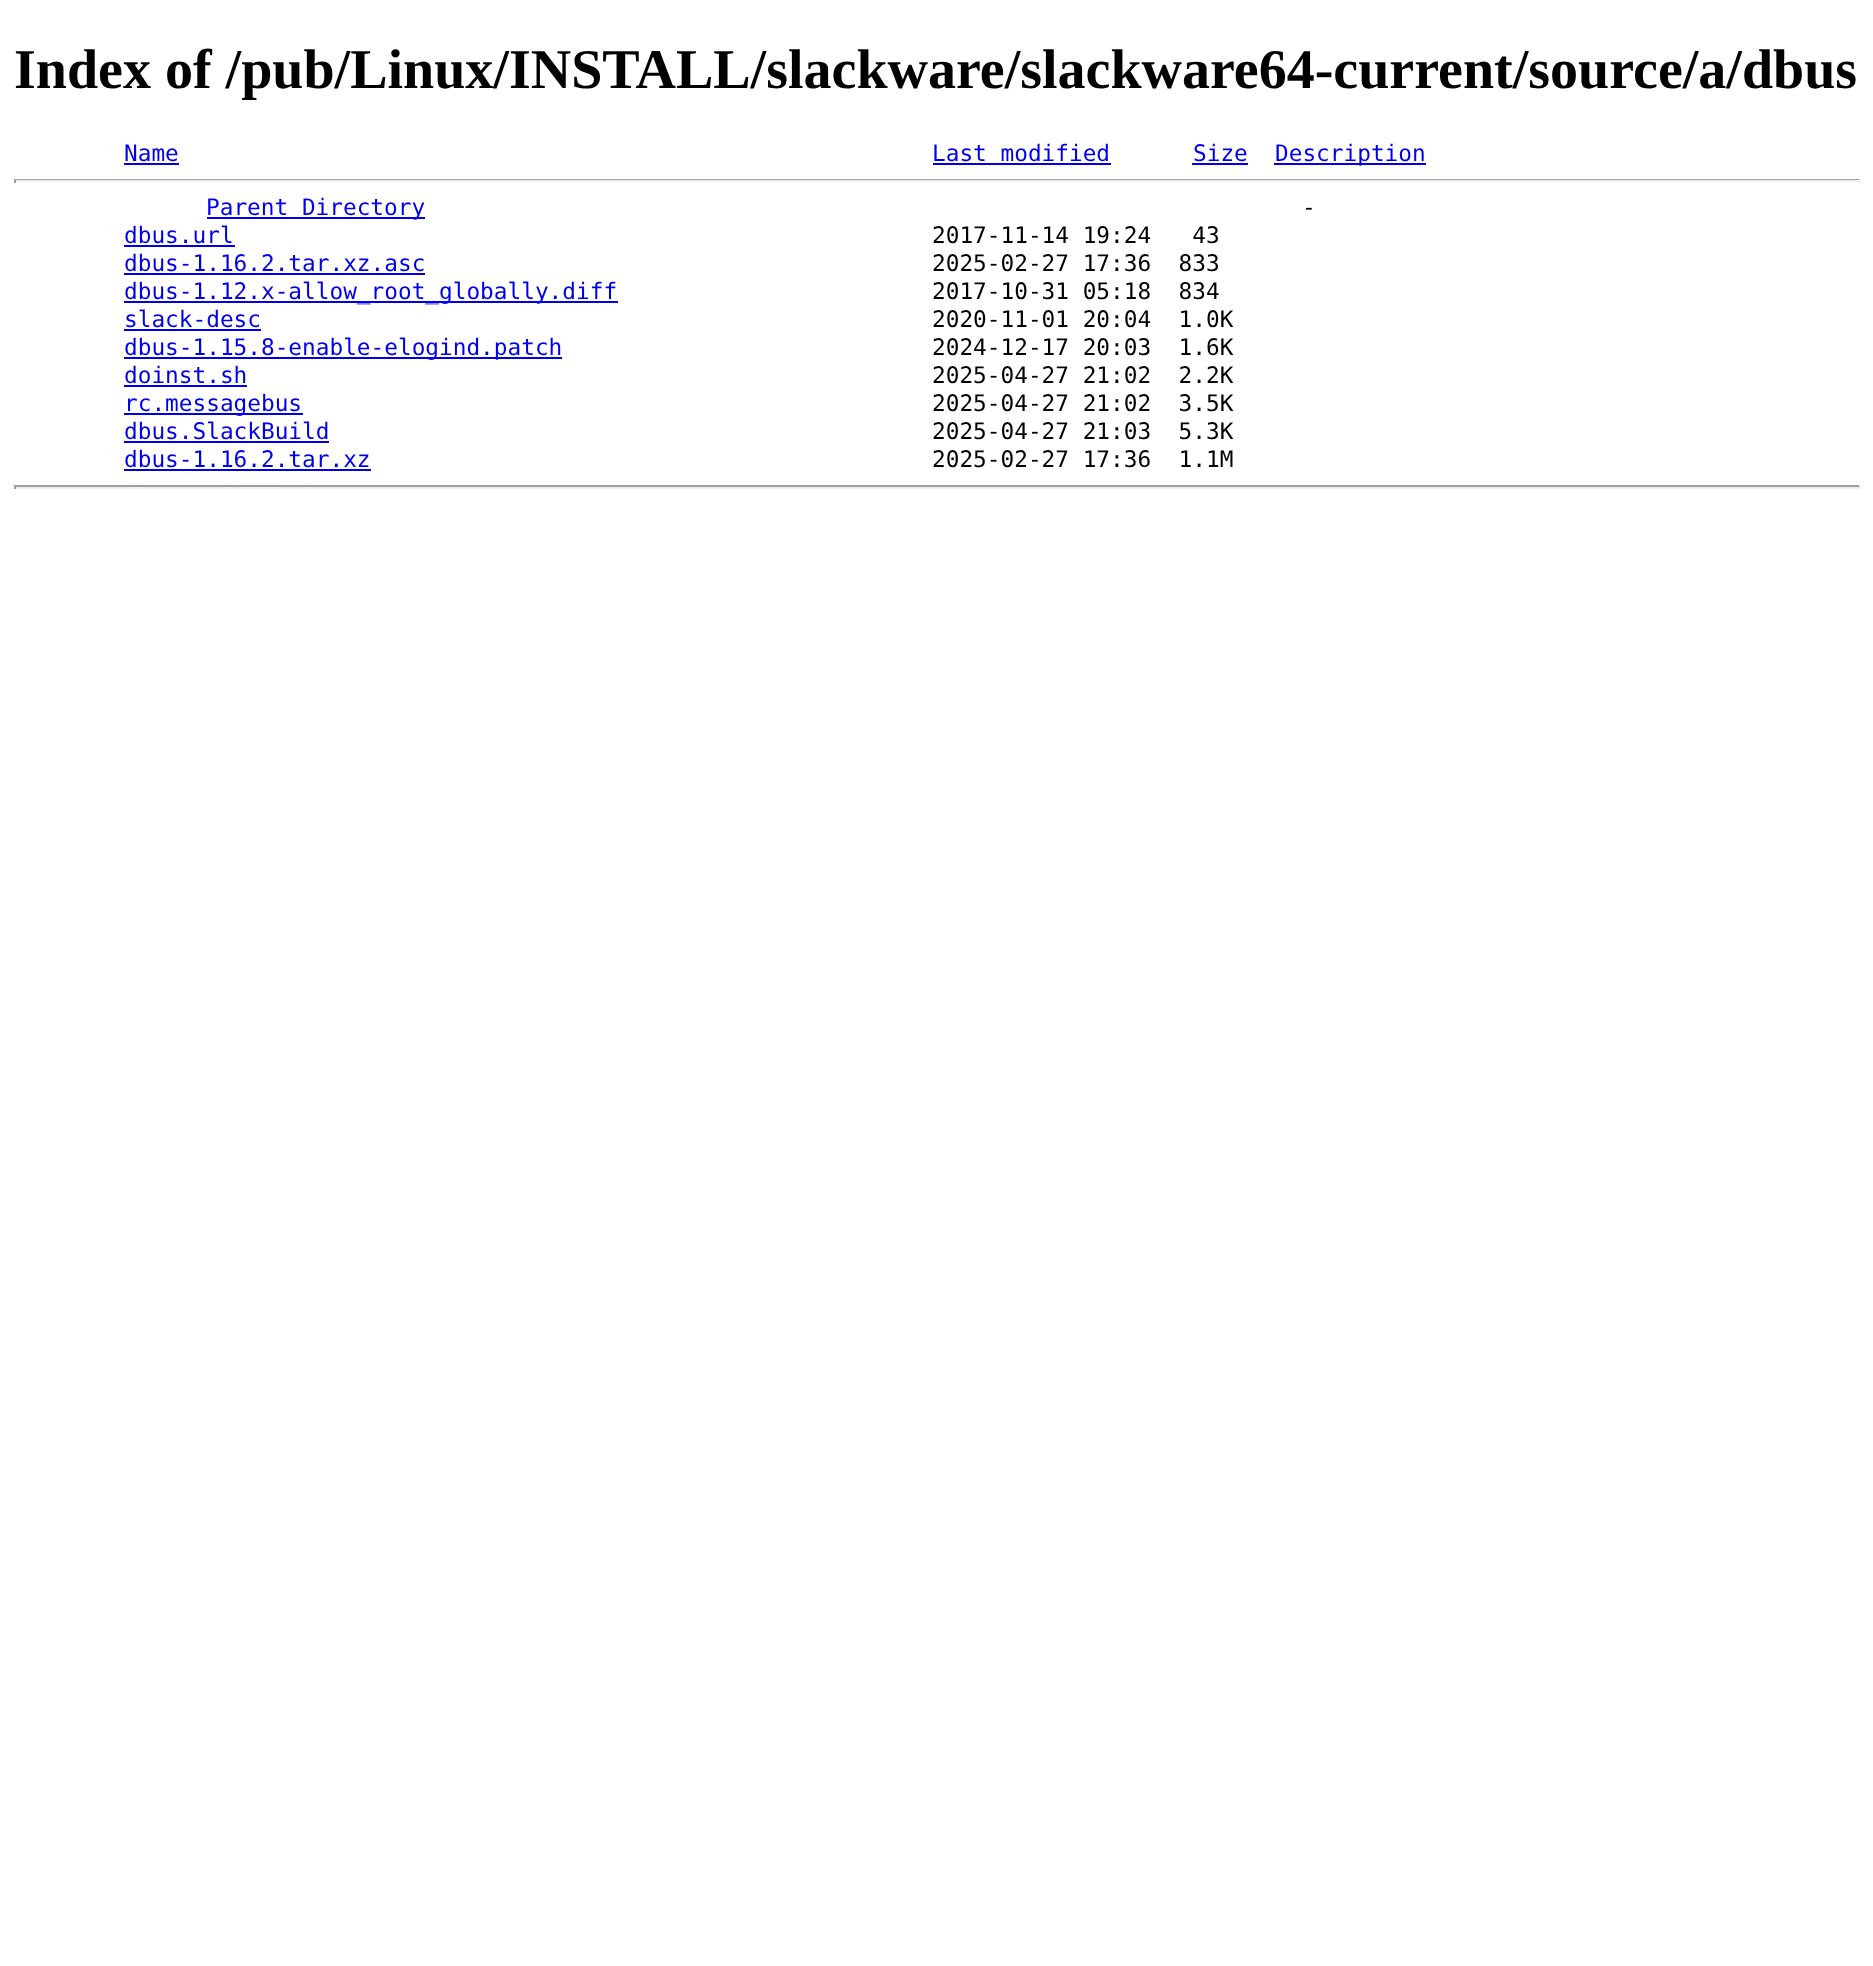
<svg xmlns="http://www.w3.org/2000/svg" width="1873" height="1966">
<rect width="100%" height="100%" fill="#fff"/>
<text x="14" y="88" style="font-family:Liberation Serif;font-size:56px;font-weight:bold;fill:#000">Index of /pub/Linux/INSTALL/slackware/slackware64-current/source/a/dbus</text>
<text x="124" y="161" style="font-family:DejaVu Sans Mono;font-size:22.75px;fill:#00e">Name</text>
<rect x="124" y="163" width="55" height="2" fill="#00e"/>
<text x="932" y="161" style="font-family:DejaVu Sans Mono;font-size:22.75px;fill:#00e">Last modified</text>
<rect x="933" y="163" width="178" height="2" fill="#00e"/>
<text x="1193" y="161" style="font-family:DejaVu Sans Mono;font-size:22.75px;fill:#00e">Size</text>
<rect x="1192" y="163" width="56" height="2" fill="#00e"/>
<rect x="1274" y="163" width="152" height="2" fill="#00e"/>
<text x="1275" y="161" style="font-family:DejaVu Sans Mono;font-size:22.75px;fill:#00e">Description</text>
<rect x="14" y="179" width="1846" height="1" fill="#9f9f9f"/>
<rect x="1859" y="179" width="2" height="4" fill="#eee"/>
<rect x="14" y="180" width="1846" height="2" fill="#eee"/>
<rect x="14" y="179" width="2" height="4" fill="#9f9f9f"/>
<rect x="207" y="217" width="218" height="2" fill="#00e"/>
<text x="206" y="215" style="font-family:DejaVu Sans Mono;font-size:22.75px;fill:#00e">Parent Directory</text>
<text x="1302" y="215" style="font-family:DejaVu Sans Mono;font-size:22.75px;fill:#000">-</text>
<text x="124" y="243" style="font-family:DejaVu Sans Mono;font-size:22.75px;fill:#00e">dbus.url</text>
<rect x="124" y="245" width="111" height="2" fill="#00e"/>
<text x="932" y="243" style="font-family:DejaVu Sans Mono;font-size:22.75px;fill:#000" xml:space="preserve">2017-11-14 19:24   43</text>
<text x="124" y="271" style="font-family:DejaVu Sans Mono;font-size:22.75px;fill:#00e">dbus-1.16.2.tar.xz.asc</text>
<rect x="124" y="273" width="301" height="2" fill="#00e"/>
<text x="932" y="271" style="font-family:DejaVu Sans Mono;font-size:22.75px;fill:#000" xml:space="preserve">2025-02-27 17:36  833</text>
<rect x="124" y="301" width="494" height="2" fill="#00e"/>
<text x="124" y="299" style="font-family:DejaVu Sans Mono;font-size:22.75px;fill:#00e">dbus-1.12.x-allow_root_globally.diff</text>
<text x="932" y="299" style="font-family:DejaVu Sans Mono;font-size:22.75px;fill:#000" xml:space="preserve">2017-10-31 05:18  834</text>
<text x="124" y="327" style="font-family:DejaVu Sans Mono;font-size:22.75px;fill:#00e">slack-desc</text>
<rect x="124" y="329" width="137" height="2" fill="#00e"/>
<text x="932" y="327" style="font-family:DejaVu Sans Mono;font-size:22.75px;fill:#000" xml:space="preserve">2020-11-01 20:04  1.0K</text>
<rect x="124" y="357" width="438" height="2" fill="#00e"/>
<text x="124" y="355" style="font-family:DejaVu Sans Mono;font-size:22.75px;fill:#00e">dbus-1.15.8-enable-elogind.patch</text>
<text x="932" y="355" style="font-family:DejaVu Sans Mono;font-size:22.75px;fill:#000" xml:space="preserve">2024-12-17 20:03  1.6K</text>
<text x="124" y="383" style="font-family:DejaVu Sans Mono;font-size:22.75px;fill:#00e">doinst.sh</text>
<rect x="124" y="385" width="123" height="2" fill="#00e"/>
<text x="932" y="383" style="font-family:DejaVu Sans Mono;font-size:22.75px;fill:#000" xml:space="preserve">2025-04-27 21:02  2.2K</text>
<rect x="124" y="413" width="179" height="2" fill="#00e"/>
<text x="124" y="411" style="font-family:DejaVu Sans Mono;font-size:22.75px;fill:#00e">rc.messagebus</text>
<text x="932" y="411" style="font-family:DejaVu Sans Mono;font-size:22.75px;fill:#000" xml:space="preserve">2025-04-27 21:02  3.5K</text>
<text x="124" y="439" style="font-family:DejaVu Sans Mono;font-size:22.75px;fill:#00e">dbus.SlackBuild</text>
<rect x="124" y="441" width="205" height="2" fill="#00e"/>
<text x="932" y="439" style="font-family:DejaVu Sans Mono;font-size:22.75px;fill:#000" xml:space="preserve">2025-04-27 21:03  5.3K</text>
<text x="124" y="467" style="font-family:DejaVu Sans Mono;font-size:22.75px;fill:#00e">dbus-1.16.2.tar.xz</text>
<rect x="124" y="469" width="247" height="2" fill="#00e"/>
<text x="932" y="467" style="font-family:DejaVu Sans Mono;font-size:22.75px;fill:#000" xml:space="preserve">2025-02-27 17:36  1.1M</text>
<rect x="14" y="485" width="1846" height="2" fill="#9f9f9f"/>
<rect x="1859" y="485" width="2" height="4" fill="#eee"/>
<rect x="14" y="487" width="1846" height="2" fill="#eee"/>
<rect x="14" y="485" width="2" height="4" fill="#9f9f9f"/>
</svg>
